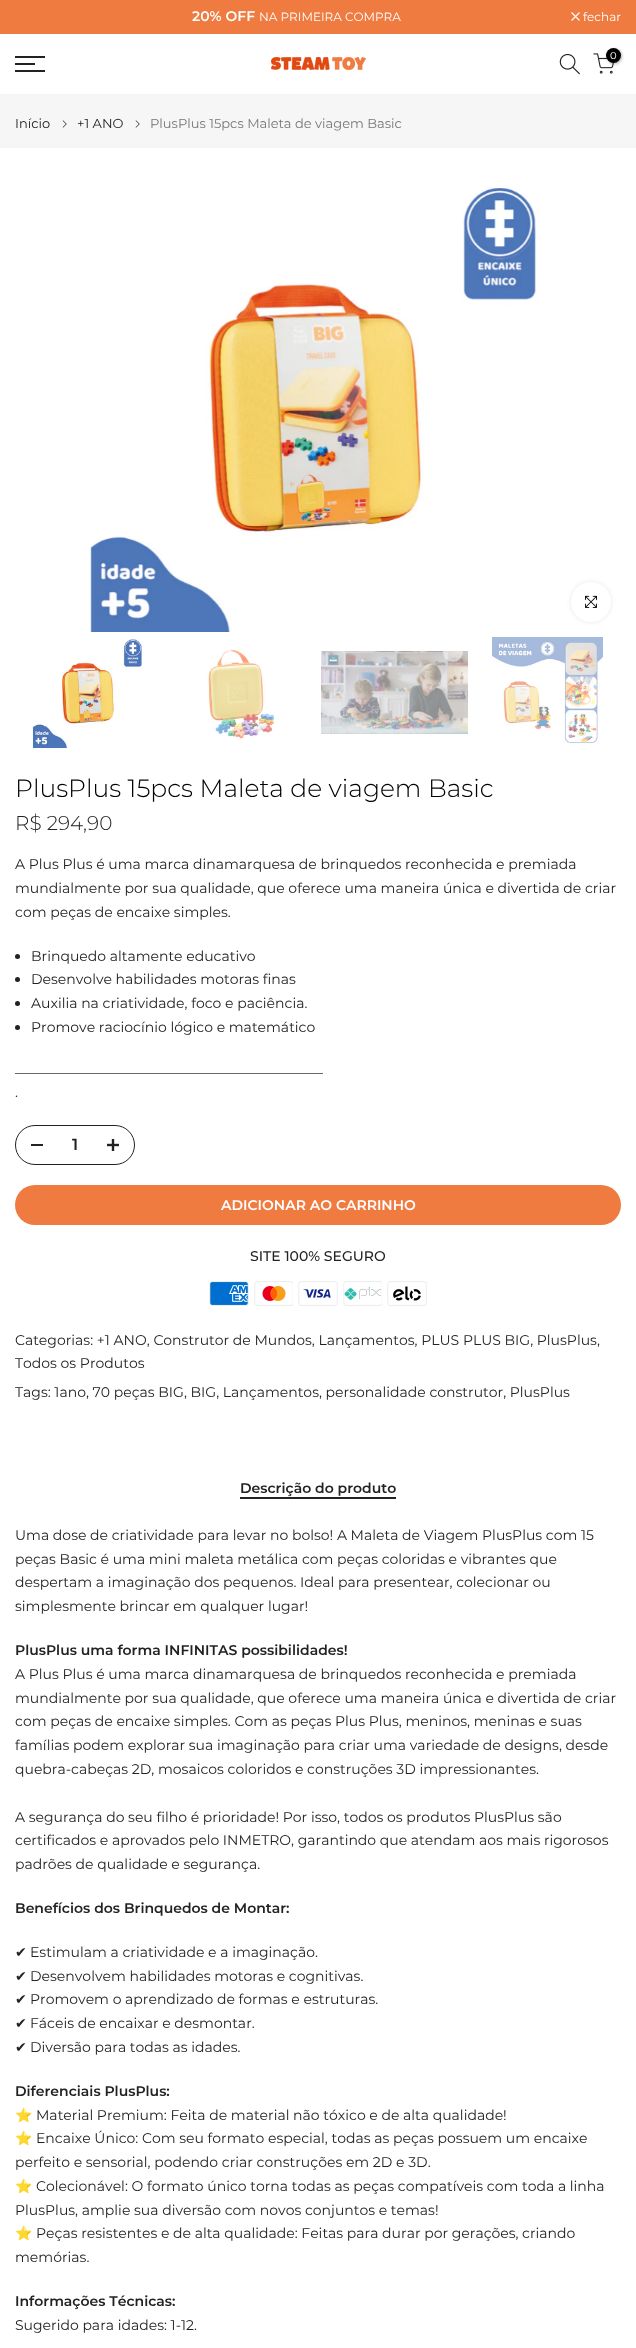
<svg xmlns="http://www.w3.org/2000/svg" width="636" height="2348">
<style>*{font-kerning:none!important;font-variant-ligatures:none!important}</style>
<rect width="100%" height="100%" fill="#fff"/>
<rect width="636" height="34" fill="#ef7b41"/>
<text x="192" y="21" style="font-family:Montserrat;font-size:14px;font-weight:600;fill:#fff">20% OFF</text>
<text x="259" y="21" style="font-family:Montserrat;font-size:12px;fill:#fff">NA PRIMEIRA COMPRA</text>
<path d="M579.5 12.5l-8 8m8 0l-8-8" fill="none" stroke="#fff" stroke-width="1.1"/>
<text x="583" y="21" style="font-family:Montserrat;font-size:12px;fill:#fff">fechar</text>
<rect x="15" y="56" width="30" height="2" fill="#222"/>
<rect x="15" y="63" width="20" height="2" fill="#222"/>
<rect x="15" y="70" width="30" height="2" fill="#222"/>
<image x="271" y="57" width="95" height="13" href="media/1.png"/>
<image x="559" y="53" width="21" height="22" href="media/2.png"/>
<image x="593" y="53" width="21" height="21" href="media/3.png"/>
<rect x="607" y="49" width="15" height="15" rx="7.5" fill="#0000004d" filter="blur(1.5px)"/>
<circle cx="613.5" cy="55.5" r="7.5" fill="#000"/>
<text x="610" y="59" style="font-family:Montserrat;font-size:10px;fill:#fff">0</text>
<rect y="94" width="636" height="54" fill="#f6f6f6"/>
<text x="15" y="128" style="font-family:Montserrat;font-size:13px;fill:#222">Início</text>
<image x="62" y="120" width="5" height="8" href="media/4.png"/>
<text x="77" y="128" style="font-family:Montserrat;font-size:13px;fill:#222">+1 ANO</text>
<image x="135" y="120" width="5" height="8" href="media/4.png"/>
<text x="150" y="128" style="font-family:Montserrat;font-size:13px;fill:#777">PlusPlus 15pcs Maleta de viagem Basic</text>
<image x="90" y="186" width="449" height="446" href="media/5.png"/>
<rect x="571" y="582" width="40" height="40" rx="20" fill="#00000017" filter="blur(2.5px)"/>
<circle cx="591" cy="602" r="20" fill="#fff"/>
<image x="585" y="595" width="12" height="13" href="media/6.png"/>
<image x="33" y="637" width="109" height="111" href="media/7.png"/>
<image x="207" y="649" width="68" height="91" href="media/8.png"/>
<image x="321" y="651" width="147" height="83" href="media/9.png"/>
<circle cx="453" cy="652" r="10" fill="#ffffff80"/>
<image x="492" y="637" width="111" height="107" href="media/10.png"/>
<text x="15" y="797" style="font-family:Montserrat;font-size:25px;font-weight:300;fill:#000">PlusPlus 15pcs Maleta de viagem Basic</text>
<text x="15" y="830" style="font-family:Montserrat;font-size:20px;font-weight:300;fill:#222">R$ 294,90</text>
<text x="15" y="869" style="font-family:Montserrat;font-size:14px;fill:#222">A Plus Plus é uma marca dinamarquesa de brinquedos reconhecida e premiada</text>
<text x="15" y="893" style="font-family:Montserrat;font-size:14px;fill:#222">mundialmente por sua qualidade, que oferece uma maneira única e divertida de criar</text>
<text x="15" y="917" style="font-family:Montserrat;font-size:14px;fill:#222">com peças de encaixe simples.</text>
<circle cx="17.5" cy="956.5" r="2.5" fill="#222"/>
<text x="31" y="961" style="font-family:Montserrat;font-size:14px;fill:#222">Brinquedo altamente educativo</text>
<circle cx="17.5" cy="979.5" r="2.5" fill="#222"/>
<text x="31" y="984" style="font-family:Montserrat;font-size:14px;fill:#222">Desenvolve habilidades motoras finas</text>
<circle cx="17.5" cy="1003.5" r="2.5" fill="#222"/>
<text x="31" y="1008" style="font-family:Montserrat;font-size:14px;fill:#222">Auxilia na criatividade, foco e paciência.</text>
<circle cx="17.5" cy="1027.5" r="2.5" fill="#222"/>
<text x="31" y="1032" style="font-family:Montserrat;font-size:14px;fill:#222">Promove raciocínio lógico e matemático</text>
<text x="15" y="1073" style="font-family:Montserrat;font-size:14px;fill:#222">____________________________________________</text>
<text x="15" y="1097" style="font-family:Montserrat;font-size:14px;fill:#222">.</text>
<rect x="15.5" y="1125.5" width="119" height="39" rx="19.5" fill="none" stroke="#222"/>
<rect x="31" y="1144" width="12" height="2" fill="#222"/>
<text x="72" y="1150" style="font-family:Montserrat;font-size:16px;font-weight:600;fill:#222">1</text>
<image x="107" y="1139" width="12" height="12" href="media/11.png"/>
<rect x="15" y="1185" width="606" height="40" rx="20" fill="#ef7b41"/>
<text x="221" y="1210" style="font-family:Montserrat;font-size:14px;font-weight:600;fill:#fff">ADICIONAR AO CARRINHO</text>
<text x="250" y="1261" style="font-family:Montserrat;font-size:14px;font-weight:500;fill:#222">SITE 100% SEGURO</text>
<image x="209" y="1281" width="40" height="25" href="media/12.png"/>
<image x="254" y="1281" width="39" height="25" href="media/13.png"/>
<image x="298" y="1281" width="40" height="25" href="media/14.png"/>
<image x="343" y="1281" width="39" height="25" href="media/15.png"/>
<image x="387" y="1281" width="40" height="25" href="media/16.png"/>
<text x="15" y="1345" style="font-family:Montserrat;font-size:14px;fill:#222">Categorias: +1 ANO, Construtor de Mundos, Lançamentos, PLUS PLUS BIG, PlusPlus,</text>
<text x="15" y="1368" style="font-family:Montserrat;font-size:14px;fill:#222">Todos os Produtos</text>
<text x="15" y="1397" style="font-family:Montserrat;font-size:14px;fill:#222">Tags: 1ano, 70 peças BIG, BIG, Lançamentos, personalidade construtor, PlusPlus</text>
<rect x="240" y="1497" width="156" height="2" fill="#222"/>
<text x="240" y="1493" style="font-family:Montserrat;font-size:14px;font-weight:600;fill:#222">Descrição do produto</text>
<text x="15" y="1540" style="font-family:Montserrat;font-size:14px;fill:#222">Uma dose de criatividade para levar no bolso! A Maleta de Viagem PlusPlus com 15</text>
<text x="15" y="1564" style="font-family:Montserrat;font-size:14px;fill:#222">peças Basic é uma mini maleta metálica com peças coloridas e vibrantes que</text>
<text x="15" y="1587" style="font-family:Montserrat;font-size:14px;fill:#222">despertam a imaginação dos pequenos. Ideal para presentear, colecionar ou</text>
<text x="15" y="1611" style="font-family:Montserrat;font-size:14px;fill:#222">simplesmente brincar em qualquer lugar!</text>
<text x="15" y="1655" style="font-family:Montserrat;font-size:14px;font-weight:600;fill:#222">PlusPlus uma forma INFINITAS possibilidades!</text>
<text x="15" y="1679" style="font-family:Montserrat;font-size:14px;fill:#222">A Plus Plus é uma marca dinamarquesa de brinquedos reconhecida e premiada</text>
<text x="15" y="1703" style="font-family:Montserrat;font-size:14px;fill:#222">mundialmente por sua qualidade, que oferece uma maneira única e divertida de criar</text>
<text x="15" y="1726" style="font-family:Montserrat;font-size:14px;fill:#222">com peças de encaixe simples. Com as peças Plus Plus, meninos, meninas e suas</text>
<text x="15" y="1750" style="font-family:Montserrat;font-size:14px;fill:#222">famílias podem explorar sua imaginação para criar uma variedade de designs, desde</text>
<text x="15" y="1774" style="font-family:Montserrat;font-size:14px;fill:#222">quebra-cabeças 2D, mosaicos coloridos e construções 3D impressionantes.</text>
<text x="15" y="1822" style="font-family:Montserrat;font-size:14px;fill:#222">A segurança do seu filho é prioridade! Por isso, todos os produtos PlusPlus são</text>
<text x="15" y="1845" style="font-family:Montserrat;font-size:14px;fill:#222">certificados e aprovados pelo INMETRO, garantindo que atendam aos mais rigorosos</text>
<text x="15" y="1869" style="font-family:Montserrat;font-size:14px;fill:#222">padrões de qualidade e segurança.</text>
<text x="15" y="1913" style="font-family:Montserrat;font-size:14px;font-weight:600;fill:#222">Benefícios dos Brinquedos de Montar:</text>
<text x="15" y="1957" style="font-family:DejaVu Sans;font-size:14px;fill:#222">✔</text>
<text x="30" y="1957" style="font-family:Montserrat;font-size:14px;fill:#222">Estimulam a criatividade e a imaginação.</text>
<text x="15" y="1981" style="font-family:DejaVu Sans;font-size:14px;fill:#222">✔</text>
<text x="30" y="1981" style="font-family:Montserrat;font-size:14px;fill:#222">Desenvolvem habilidades motoras e cognitivas.</text>
<text x="15" y="2004" style="font-family:DejaVu Sans;font-size:14px;fill:#222">✔</text>
<text x="30" y="2004" style="font-family:Montserrat;font-size:14px;fill:#222">Promovem o aprendizado de formas e estruturas.</text>
<text x="15" y="2028" style="font-family:DejaVu Sans;font-size:14px;fill:#222">✔</text>
<text x="30" y="2028" style="font-family:Montserrat;font-size:14px;fill:#222">Fáceis de encaixar e desmontar.</text>
<text x="15" y="2052" style="font-family:DejaVu Sans;font-size:14px;fill:#222">✔</text>
<text x="30" y="2052" style="font-family:Montserrat;font-size:14px;fill:#222">Diversão para todas as idades.</text>
<text x="15" y="2096" style="font-family:Montserrat;font-size:14px;font-weight:600;fill:#222">Diferenciais PlusPlus:</text>
<text x="15" y="2120" style="font-family:Noto Color Emoji;font-size:14px;fill:#222">⭐</text>
<text x="36" y="2120" style="font-family:Montserrat;font-size:14px;fill:#222">Material Premium: Feita de material não tóxico e de alta qualidade!</text>
<text x="15" y="2143" style="font-family:Noto Color Emoji;font-size:14px;fill:#222">⭐</text>
<text x="36" y="2143" style="font-family:Montserrat;font-size:14px;fill:#222">Encaixe Único: Com seu formato especial, todas as peças possuem um encaixe</text>
<text x="15" y="2167" style="font-family:Montserrat;font-size:14px;fill:#222">perfeito e sensorial, podendo criar construções em 2D e 3D.</text>
<text x="15" y="2191" style="font-family:Noto Color Emoji;font-size:14px;fill:#222">⭐</text>
<text x="36" y="2191" style="font-family:Montserrat;font-size:14px;fill:#222">Colecionável: O formato único torna todas as peças compatíveis com toda a linha</text>
<text x="15" y="2215" style="font-family:Montserrat;font-size:14px;fill:#222">PlusPlus, amplie sua diversão com novos conjuntos e temas!</text>
<text x="15" y="2238" style="font-family:Noto Color Emoji;font-size:14px;fill:#222">⭐</text>
<text x="36" y="2238" style="font-family:Montserrat;font-size:14px;fill:#222">Peças resistentes e de alta qualidade: Feitas para durar por gerações,</text>
<text x="522" y="2238" style="font-family:Montserrat;font-size:14px;fill:#222">criando</text>
<text x="15" y="2262" style="font-family:Montserrat;font-size:14px;fill:#222">memórias.</text>
<text x="15" y="2306" style="font-family:Montserrat;font-size:14px;font-weight:600;fill:#222">Informações Técnicas:</text>
<text x="15" y="2330" style="font-family:Montserrat;font-size:14px;fill:#222">Sugerido para idades: 1-12.</text>
</svg>
